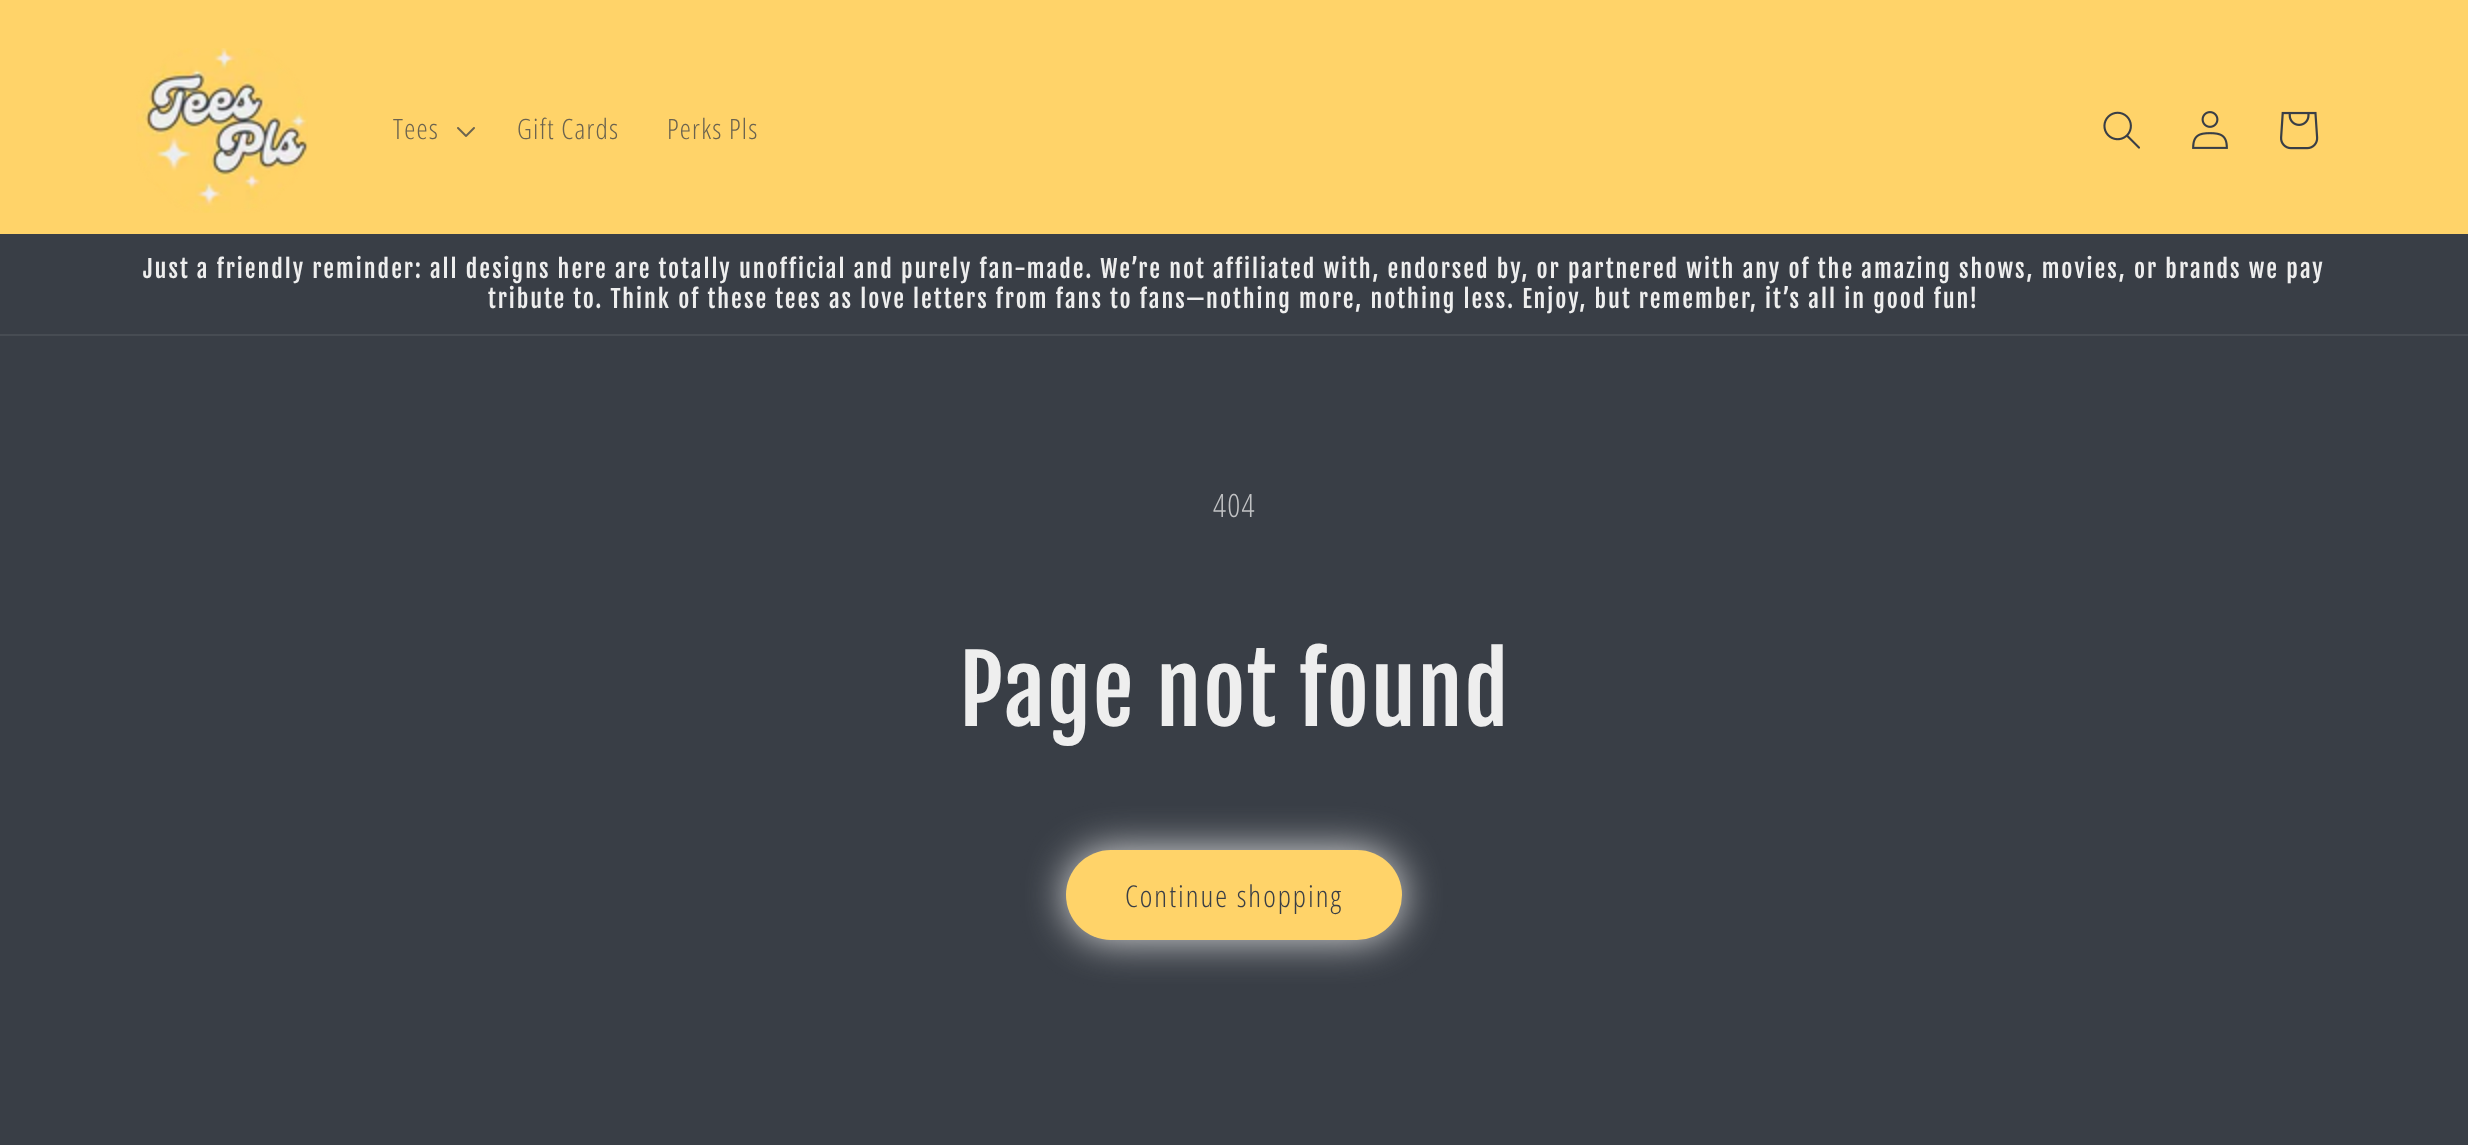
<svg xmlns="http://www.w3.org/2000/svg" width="2468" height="1145">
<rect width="100%" height="100%" fill="#393e46"/>
<rect width="2468" height="234" fill="#ffd369"/>
<image x="136" y="48" width="172" height="165" href="media/1.png"/>
<text x="393" y="139" style="font-family:Open Sans Condensed;font-size:28px;font-weight:300;letter-spacing:1.25px;fill:#6b634f">Tees</text>
<image x="457" y="127" width="18" height="10" href="media/2.png"/>
<text x="517" y="139" style="font-family:Open Sans Condensed;font-size:28px;font-weight:300;letter-spacing:1.25px;fill:#6b634f">Gift Cards</text>
<text x="667" y="139" style="font-family:Open Sans Condensed;font-size:28px;font-weight:300;letter-spacing:1.25px;fill:#6b634f">Perks Pls</text>
<image x="2103" y="111" width="37" height="38" href="media/3.png"/>
<image x="2192" y="111" width="36" height="38" href="media/4.png"/>
<image x="2280" y="111" width="39" height="39" href="media/5.png"/>
<rect y="334" width="2468" height="2" fill="#474c53"/>
<text x="143" y="278" style="font-family:Fjalla One;font-size:24px;letter-spacing:2px;fill:#eee">Just a friendly reminder: all designs here are totally unofficial and purely fan-made. We’re not affiliated with, endorsed by, or partnered with any of the amazing shows, movies, or brands we pay</text>
<text x="488" y="308" style="font-family:Fjalla One;font-size:24px;letter-spacing:2px;fill:#eee">tribute to. Think of these tees as love letters from fans to fans—nothing more, nothing less. Enjoy, but remember, it’s all in good fun!</text>
<text x="1213" y="517" style="font-family:Open Sans Condensed;font-size:32px;font-weight:300;letter-spacing:1.25px;fill:#c1c2c4">404</text>
<text x="959" y="726" style="font-family:Fjalla One;font-size:92px;letter-spacing:1.4px;fill:#eee">Page not found</text>
<rect x="1066" y="850" width="336" height="90" rx="45" fill="#eeeeeee6" filter="blur(20px)"/>
<rect x="1066" y="850" width="336" height="90" rx="45" fill="#ffd369"/>
<text x="1125" y="907" style="font-family:Open Sans Condensed;font-size:30px;font-weight:300;letter-spacing:2px;fill:#393e46">Continue shopping</text>
</svg>
